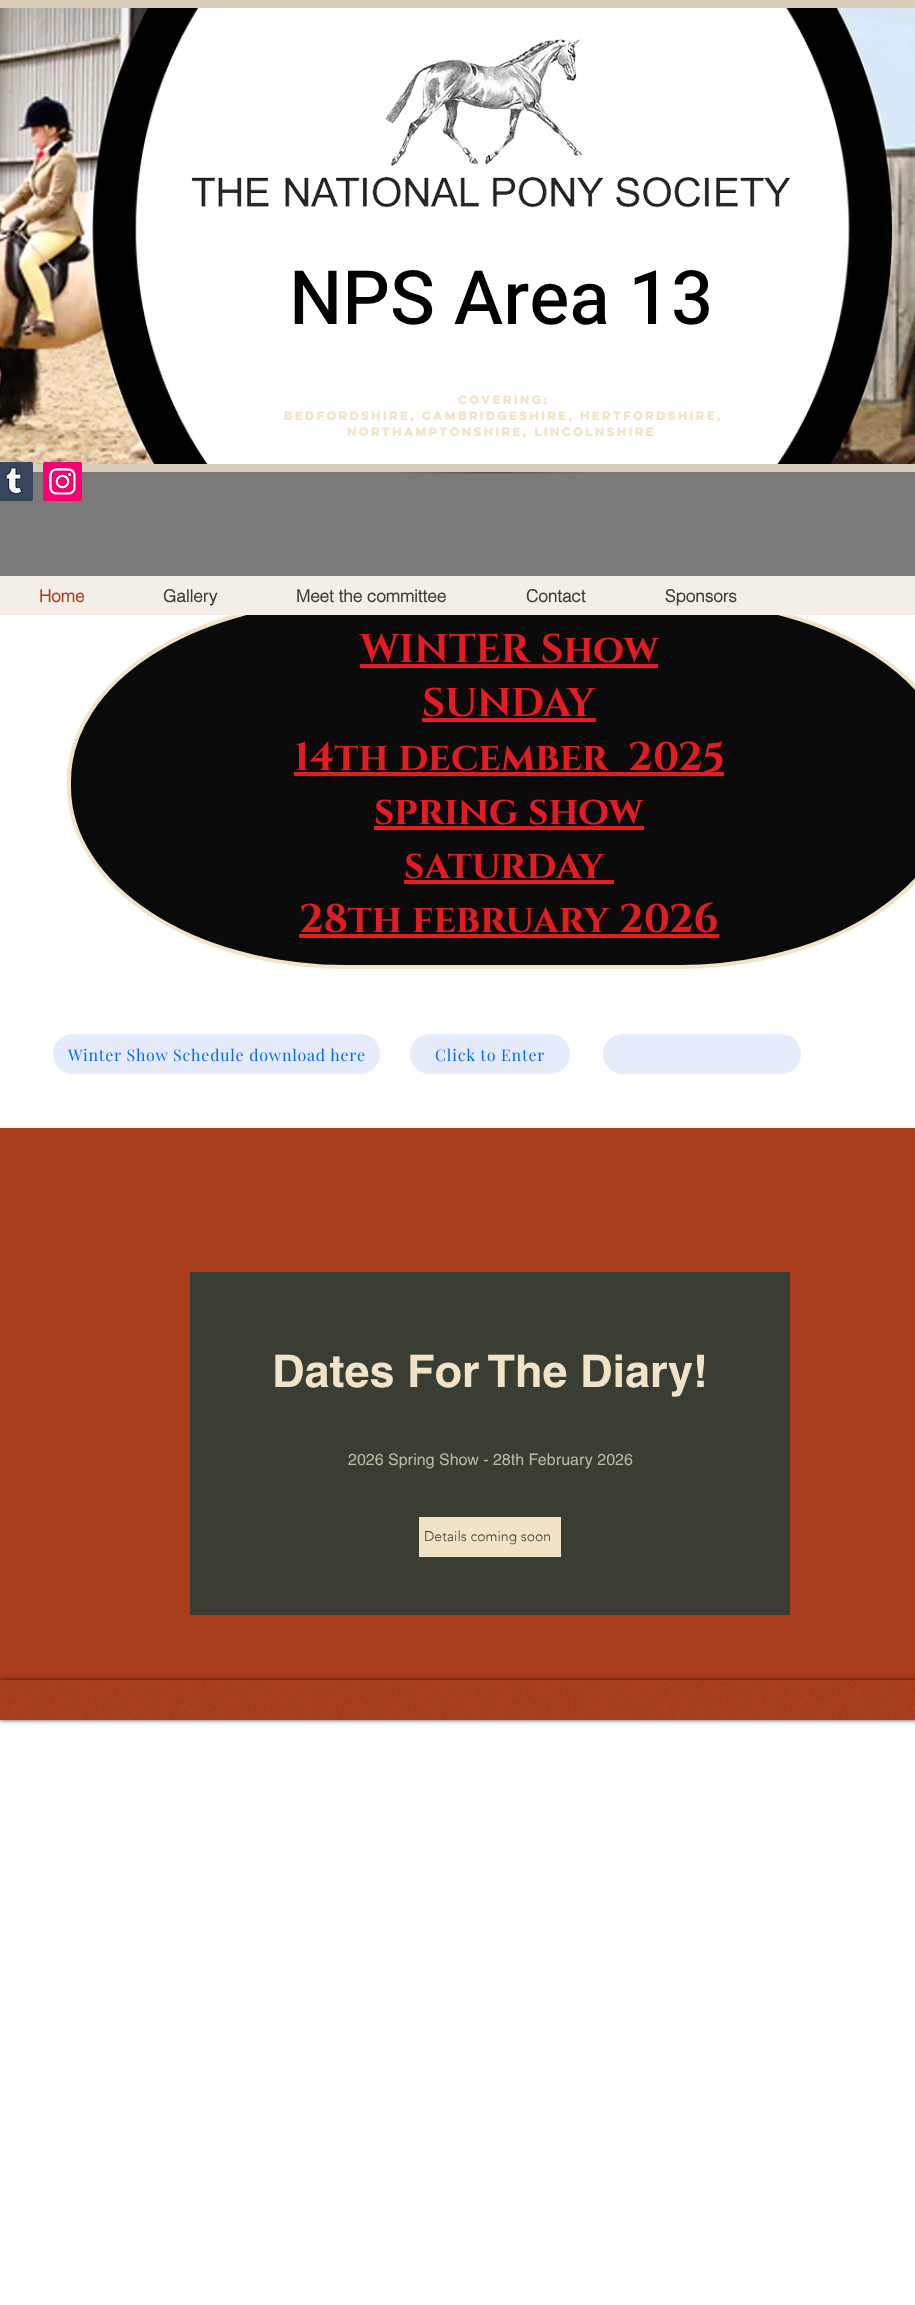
<svg xmlns="http://www.w3.org/2000/svg" width="915" height="2305">
<rect width="100%" height="100%" fill="#fff"/>
<rect y="472" width="915" height="104" fill="#7b7b7b"/>
<rect x="-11" width="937" height="472" rx="3" fill="#0000001a" filter="blur(2.5px)"/>
<path d="M-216 4h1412v464h-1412z" fill="none" stroke="#d8cdb8" stroke-width="8"/>
<image x="0" y="8" width="915" height="456" href="media/1.png"/>
<image x="402" y="472" width="177" height="2" href="media/2.png"/>
<image x="191" y="39" width="599" height="169" href="media/3.png"/>
<text x="289" y="324" style="font-family:Heebo;font-size:75px;font-weight:500;fill:#000">NPS Area 13</text>
<text x="458" y="404" style="font-family:'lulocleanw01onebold';font-size:11px;font-weight:bold;fill:#f1e3c8">Covering:</text>
<text x="284" y="420" style="font-family:'lulocleanw01onebold';font-size:11px;font-weight:bold;fill:#f1e3c8">Bedfordshire, Cambridgeshire, Hertfordshire,</text>
<text x="347" y="436" style="font-family:'lulocleanw01onebold';font-size:11px;font-weight:bold;fill:#f1e3c8">Northamptonshire, Lincolnshire</text>
<image x="0" y="462" width="33" height="39" href="media/4.png"/>
<image x="43" y="462" width="39" height="39" href="media/5.png"/>
<path d="M679 967h-333c-152 0-277-81-277-180v-6c0-99 125-180 277-180h333c152 0 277 81 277 180v6c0 99-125 180-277 180z" fill="#0a0a0a"/>
<path d="M679 967h-333c-152.5 0-277-81-277-180v-6c0-99 124.5-180 277-180h333c152.5 0 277 81 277 180v6c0 99-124.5 180-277 180z" fill="none" stroke="#f1e3c8" stroke-width="4"/>
<rect y="576" width="915" height="39" fill="#f3efe7"/>
<text x="39" y="602" style="font-family:'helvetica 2';font-size:17px;font-weight:bold;fill:#aa3d1d">Home</text>
<text x="163" y="602" style="font-family:'helvetica 2';font-size:17px;font-weight:bold;fill:#393d32">Gallery</text>
<text x="296" y="602" style="font-family:'helvetica 2';font-size:17px;font-weight:bold;fill:#393d32">Meet the committee</text>
<text x="526" y="602" style="font-family:'helvetica 2';font-size:17px;font-weight:bold;fill:#393d32">Contact</text>
<text x="665" y="602" style="font-family:'helvetica 2';font-size:17px;font-weight:bold;fill:#393d32">Sponsors</text>
<text x="360" y="662" style="font-family:Cinzel;font-size:40px;font-weight:bold;fill:#e21c21">WINTER Show</text>
<rect x="360" y="664" width="298" height="4" fill="#e21c21"/>
<text x="422" y="716" style="font-family:Cinzel;font-size:40px;font-weight:bold;fill:#e21c21">SUNDAY</text>
<rect x="422" y="718" width="174" height="4" fill="#e21c21"/>
<rect x="294" y="772" width="430" height="4" fill="#e21c21"/>
<text x="294" y="770" style="font-family:Cinzel;font-size:40px;font-weight:bold;fill:#e21c21" xml:space="preserve">14th december  2025</text>
<text x="374" y="824" style="font-family:Cinzel;font-size:40px;font-weight:bold;fill:#e21c21">spring show</text>
<rect x="374" y="826" width="270" height="4" fill="#e21c21"/>
<text x="404" y="878" style="font-family:Cinzel;font-size:40px;font-weight:bold;fill:#e21c21">saturday</text>
<rect x="404" y="880" width="210" height="4" fill="#e21c21"/>
<text x="299" y="932" style="font-family:Cinzel;font-size:40px;font-weight:bold;fill:#e21c21">28th february 2026</text>
<rect x="299" y="934" width="420" height="4" fill="#e21c21"/>
<rect x="53" y="1034" width="327" height="40" rx="20" fill="#e5ebfa"/>
<text x="68" y="1061" style="font-family:Playfair Display;font-size:16px;letter-spacing:0.8px;fill:#0069ff">Winter Show Schedule download here</text>
<rect x="410" y="1034" width="160" height="40" rx="20" fill="#e5ebfa"/>
<text x="435" y="1061" style="font-family:Playfair Display;font-size:16px;letter-spacing:0.8px;fill:#0069ff">Click to Enter</text>
<rect x="603" y="1034" width="198" height="40" rx="20" fill="#e5ebfa"/>
<rect y="1128" width="915" height="552" fill="#aa3d1d"/>
<rect x="190" y="1272" width="600" height="343" fill="#393d32"/>
<text x="272" y="1387" style="font-family:helvetica;font-size:45px;font-weight:bold;fill:#f1e3c8">Dates For The Diary!</text>
<text x="348" y="1465" style="font-family:helvetica;font-size:16px;fill:#c3baa3">2026 Spring Show - 28th February 2026</text>
<rect x="419" y="1517" width="142" height="40" fill="#f1e3c8"/>
<text x="424" y="1541" style="font-family:'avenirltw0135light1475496';font-size:14px;font-weight:300;fill:#393d32">Details coming soon</text>
<rect y="1680" width="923" height="40" fill="#000000b3" filter="blur(2.5px)"/>
<rect y="1680" width="915" height="40" fill="#aa3d1d"/>
<image x="0" y="1680" width="915" height="40" href="media/6.png"/>
</svg>
